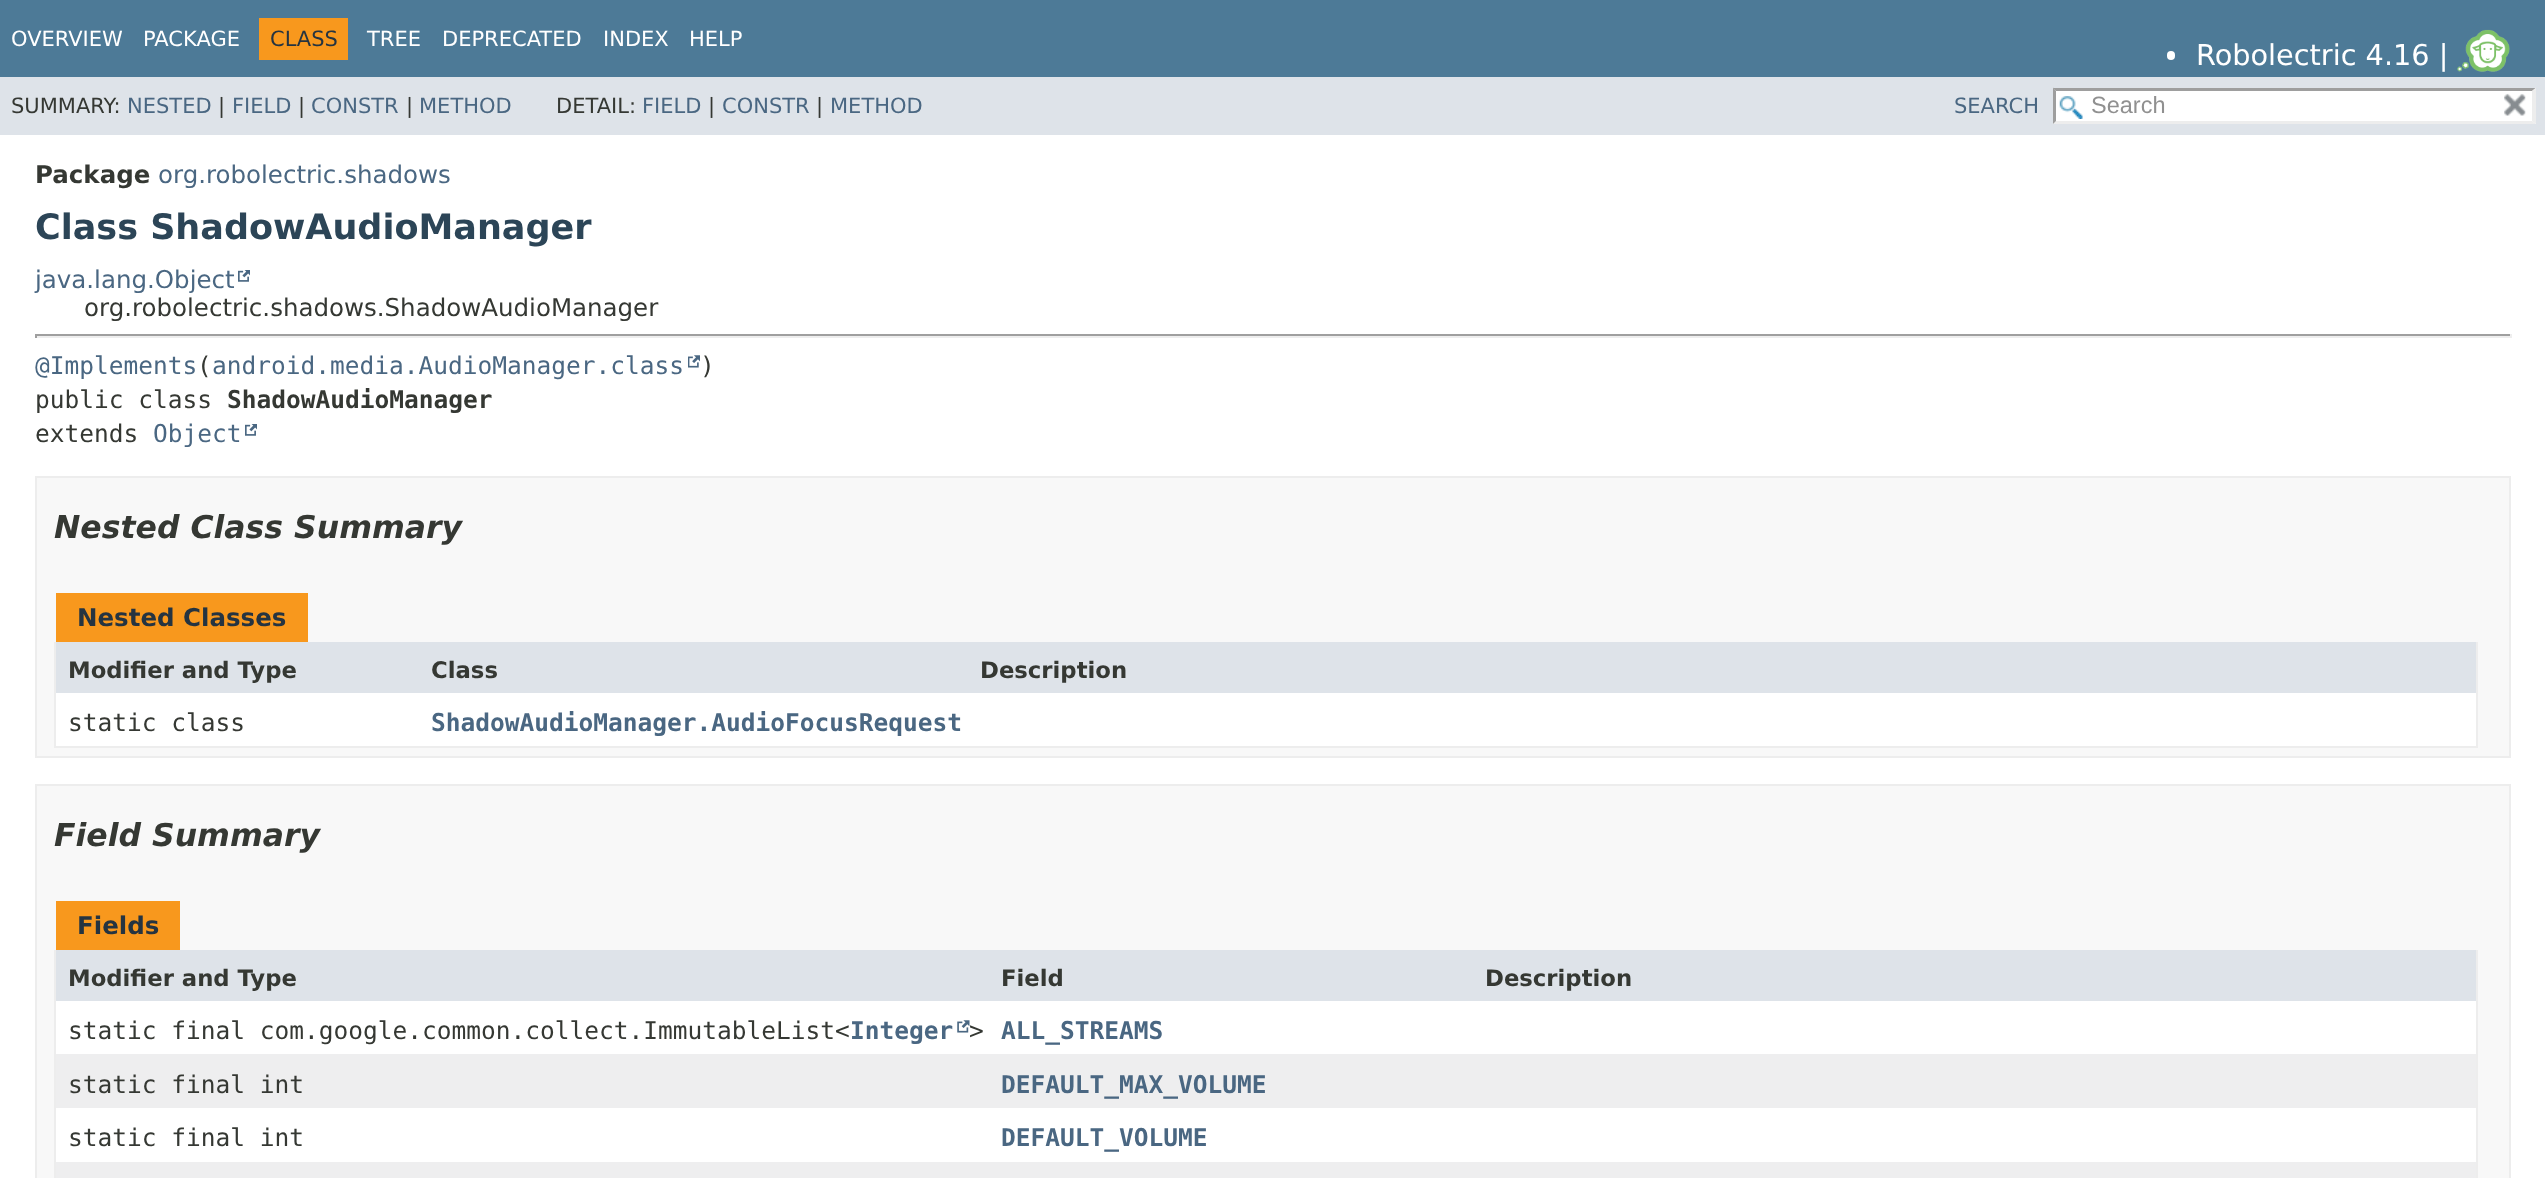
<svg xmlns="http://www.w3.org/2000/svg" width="2545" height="1178">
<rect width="100%" height="100%" fill="#fff"/>
<rect width="2545" height="77" fill="#4d7a97"/>
<text x="11" y="46" style="font-family:DejaVu Sans;font-size:21px;fill:#fff">OVERVIEW</text>
<text x="143" y="46" style="font-family:DejaVu Sans;font-size:21px;fill:#fff">PACKAGE</text>
<rect x="259" y="18" width="89" height="42" fill="#f8981d"/>
<text x="270" y="46" style="font-family:DejaVu Sans;font-size:21px;fill:#253441">CLASS</text>
<text x="367" y="46" style="font-family:DejaVu Sans;font-size:21px;fill:#fff">TREE</text>
<text x="442" y="46" style="font-family:DejaVu Sans;font-size:21px;fill:#fff">DEPRECATED</text>
<text x="603" y="46" style="font-family:DejaVu Sans;font-size:21px;fill:#fff">INDEX</text>
<text x="689" y="46" style="font-family:DejaVu Sans;font-size:21px;fill:#fff">HELP</text>
<rect x="2167" y="51" width="8" height="9" rx="4" fill="#fff"/>
<text x="2196" y="65" style="font-family:DejaVu Sans;font-size:28.75px;fill:#fff">Robolectric 4.16 |</text>
<image x="2457" y="29" width="53" height="43" href="media/1.png"/>
<rect y="77" width="2545" height="58" fill="#dee3e9"/>
<text x="11" y="113" style="font-family:DejaVu Sans;font-size:21px;fill:#353833">SUMMARY:</text>
<text x="127" y="113" style="font-family:DejaVu Sans;font-size:21px;fill:#4a6782">NESTED</text>
<text x="218" y="113" style="font-family:DejaVu Sans;font-size:21px;fill:#353833">|</text>
<text x="232" y="113" style="font-family:DejaVu Sans;font-size:21px;fill:#4a6782">FIELD</text>
<text x="298" y="113" style="font-family:DejaVu Sans;font-size:21px;fill:#353833">|</text>
<text x="311" y="113" style="font-family:DejaVu Sans;font-size:21px;fill:#4a6782">CONSTR</text>
<text x="406" y="113" style="font-family:DejaVu Sans;font-size:21px;fill:#353833">|</text>
<text x="419" y="113" style="font-family:DejaVu Sans;font-size:21px;fill:#4a6782">METHOD</text>
<text x="556" y="113" style="font-family:DejaVu Sans;font-size:21px;fill:#353833">DETAIL:</text>
<text x="642" y="113" style="font-family:DejaVu Sans;font-size:21px;fill:#4a6782">FIELD</text>
<text x="708" y="113" style="font-family:DejaVu Sans;font-size:21px;fill:#353833">|</text>
<text x="722" y="113" style="font-family:DejaVu Sans;font-size:21px;fill:#4a6782">CONSTR</text>
<text x="816" y="113" style="font-family:DejaVu Sans;font-size:21px;fill:#353833">|</text>
<text x="830" y="113" style="font-family:DejaVu Sans;font-size:21px;fill:#4a6782">METHOD</text>
<text x="1954" y="113" style="font-family:DejaVu Sans;font-size:21px;fill:#4a6782">SEARCH</text>
<rect x="2053" y="88" width="483" height="36" fill="#fff"/>
<image x="2059" y="96" width="24" height="23" href="media/2.png"/>
<path d="M2053 88h483l-4 3h-476z" fill="#9e9e9e"/>
<path d="M2536 87.5v36.5l-4-3v-30z" fill="#ededed"/>
<path d="M2536 124h-483l3-3h476z" fill="#ededed"/>
<path d="M2053 124v-36.5l3 3.5v30z" fill="#9e9e9e"/>
<text x="2091" y="113" style="font-family:Liberation Sans;font-size:23.5px;fill:#909090">Search</text>
<image x="2504" y="93" width="22" height="23" href="media/3.png"/>
<text x="35" y="183" style="font-family:DejaVu Sans;font-size:24.5px;font-weight:bold;fill:#353833">Package</text>
<text x="158" y="183" style="font-family:DejaVu Sans;font-size:24.5px;fill:#4a6782">org.robolectric.shadows</text>
<text x="35" y="239" style="font-family:DejaVu Sans;font-size:35px;font-weight:bold;fill:#2c4557">Class ShadowAudioManager</text>
<text x="35" y="288" style="font-family:DejaVu Sans;font-size:24.5px;fill:#4a6782">java.lang.Object</text>
<image x="238" y="270" width="12" height="12" href="media/4.png"/>
<text x="84" y="316" style="font-family:DejaVu Sans;font-size:24.5px;fill:#353833">org.robolectric.shadows.ShadowAudioManager</text>
<rect x="35" y="334" width="2476" height="2" fill="#9f9f9f"/>
<rect x="2510" y="334" width="2" height="4" fill="#eee"/>
<rect x="35" y="336" width="2476" height="2" fill="#eee"/>
<rect x="35" y="334" width="2" height="4" fill="#9f9f9f"/>
<text x="35" y="374" style="font-family:DejaVu Sans Mono;font-size:24.5px;fill:#4a6782">@Implements android.media.AudioManager.class</text>
<text x="197" y="374" style="font-family:DejaVu Sans Mono;font-size:24.5px;fill:#353833">(</text>
<image x="688" y="355" width="12" height="13" href="media/5.png"/>
<text x="700" y="374" style="font-family:DejaVu Sans Mono;font-size:24.5px;fill:#353833">)</text>
<text x="35" y="408" style="font-family:DejaVu Sans Mono;font-size:24.5px;fill:#353833">public class</text>
<text x="227" y="408" style="font-family:DejaVu Sans Mono;font-size:24.5px;font-weight:bold;fill:#353833">ShadowAudioManager</text>
<text x="35" y="442" style="font-family:DejaVu Sans Mono;font-size:24.5px;fill:#353833">extends</text>
<text x="153" y="442" style="font-family:DejaVu Sans Mono;font-size:24.5px;fill:#4a6782">Object</text>
<image x="245" y="424" width="12" height="12" href="media/4.png"/>
<rect x="36" y="477" width="2474" height="280" fill="#f8f8f8" stroke="#ededed" stroke-width="2"/>
<text x="54" y="538" style="font-family:DejaVu Sans;font-size:31.5px;font-weight:bold;font-style:italic;fill:#353833">Nested Class Summary</text>
<rect x="56" y="593" width="252" height="49" fill="#f8981d"/>
<text x="77" y="626" style="font-family:DejaVu Sans;font-size:24.5px;font-weight:bold;fill:#253441">Nested Classes</text>
<rect x="2476" y="642" width="2" height="105" fill="#ededed"/>
<rect x="54" y="746" width="2424" height="2" fill="#ededed"/>
<rect x="54" y="642" width="2" height="105" fill="#ededed"/>
<rect x="56" y="642" width="2420" height="51" fill="#dee3e9"/>
<text x="68" y="678" style="font-family:DejaVu Sans;font-size:22.75px;font-weight:bold;fill:#353833">Modifier and Type</text>
<text x="431" y="678" style="font-family:DejaVu Sans;font-size:22.75px;font-weight:bold;fill:#353833">Class</text>
<text x="980" y="678" style="font-family:DejaVu Sans;font-size:22.75px;font-weight:bold;fill:#353833">Description</text>
<rect x="56" y="693" width="2420" height="53" fill="#fff"/>
<text x="68" y="731" style="font-family:DejaVu Sans Mono;font-size:24.5px;fill:#353833">static class</text>
<text x="431" y="731" style="font-family:DejaVu Sans Mono;font-size:24.5px;font-weight:bold;fill:#4a6782">ShadowAudioManager.AudioFocusRequest</text>
<rect x="36" y="785" width="2474" height="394" fill="#f8f8f8" stroke="#ededed" stroke-width="2"/>
<text x="54" y="846" style="font-family:DejaVu Sans;font-size:31.5px;font-weight:bold;font-style:italic;fill:#353833">Field Summary</text>
<rect x="56" y="901" width="124" height="49" fill="#f8981d"/>
<text x="77" y="934" style="font-family:DejaVu Sans;font-size:24.5px;font-weight:bold;fill:#253441">Fields</text>
<rect x="2476" y="950" width="2" height="228" fill="#ededed"/>
<rect x="54" y="950" width="2" height="228" fill="#ededed"/>
<rect x="56" y="950" width="2420" height="51" fill="#dee3e9"/>
<text x="68" y="986" style="font-family:DejaVu Sans;font-size:22.75px;font-weight:bold;fill:#353833">Modifier and Type</text>
<text x="1001" y="986" style="font-family:DejaVu Sans;font-size:22.75px;font-weight:bold;fill:#353833">Field</text>
<text x="1485" y="986" style="font-family:DejaVu Sans;font-size:22.75px;font-weight:bold;fill:#353833">Description</text>
<rect x="56" y="1001" width="2420" height="53" fill="#fff"/>
<text x="68" y="1039" style="font-family:DejaVu Sans Mono;font-size:24.5px;fill:#353833">static final com.google.common.collect.ImmutableList&lt;</text>
<text x="850" y="1039" style="font-family:DejaVu Sans Mono;font-size:24.5px;font-weight:bold;fill:#4a6782">Integer</text>
<image x="957" y="1020" width="13" height="13" href="media/6.png"/>
<text x="969" y="1039" style="font-family:DejaVu Sans Mono;font-size:24.5px;fill:#353833">&gt;</text>
<text x="1001" y="1039" style="font-family:DejaVu Sans Mono;font-size:24.5px;font-weight:bold;fill:#4a6782">ALL_STREAMS</text>
<rect x="56" y="1054" width="2420" height="54" fill="#eeeeef"/>
<text x="68" y="1093" style="font-family:DejaVu Sans Mono;font-size:24.5px;fill:#353833">static final int</text>
<text x="1001" y="1093" style="font-family:DejaVu Sans Mono;font-size:24.5px;font-weight:bold;fill:#4a6782">DEFAULT_MAX_VOLUME</text>
<rect x="56" y="1108" width="2420" height="54" fill="#fff"/>
<text x="68" y="1146" style="font-family:DejaVu Sans Mono;font-size:24.5px;fill:#353833">static final int</text>
<text x="1001" y="1146" style="font-family:DejaVu Sans Mono;font-size:24.5px;font-weight:bold;fill:#4a6782">DEFAULT_VOLUME</text>
<rect x="56" y="1162" width="2420" height="16" fill="#eeeeef"/>
</svg>
